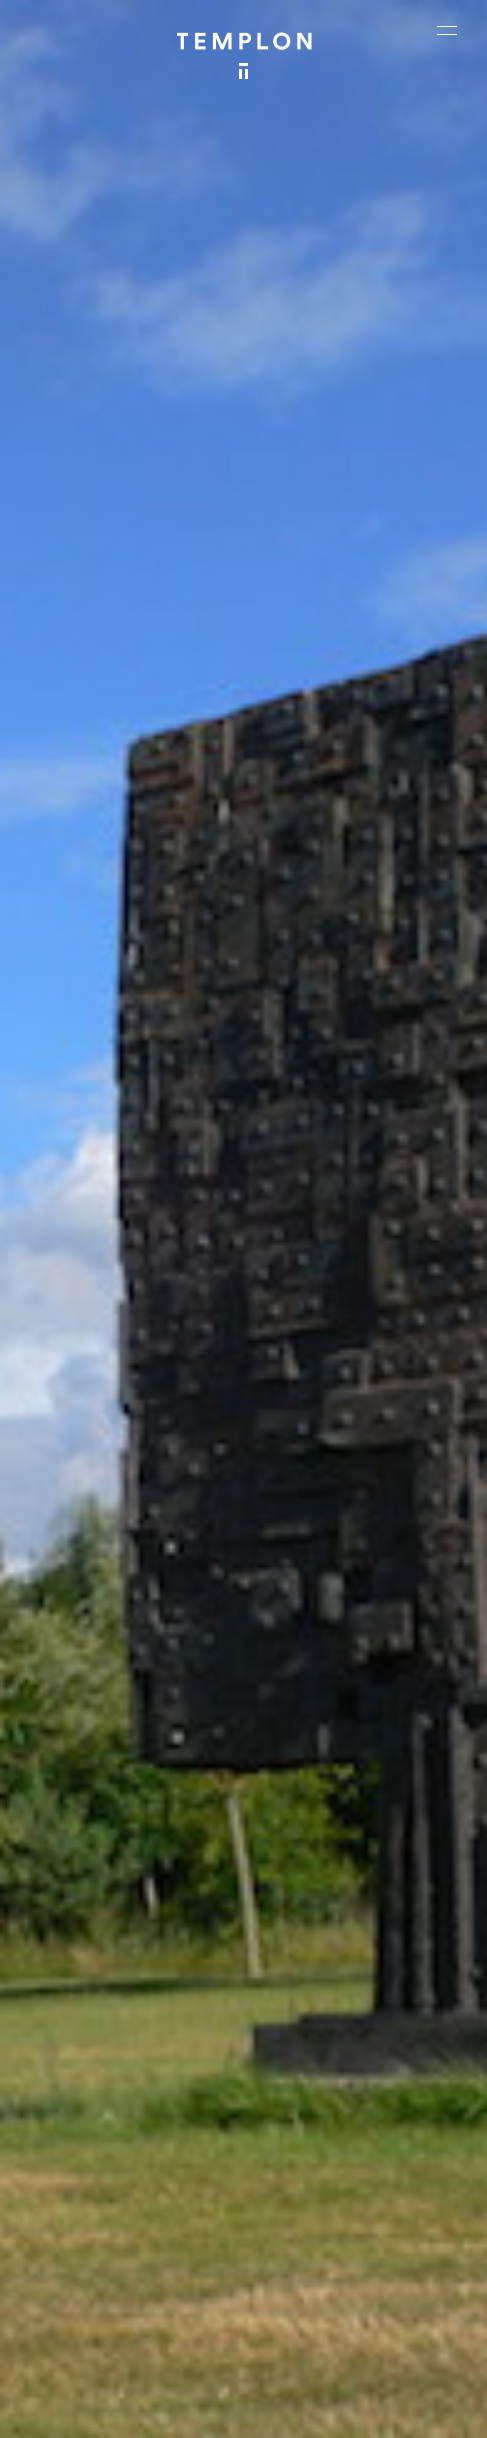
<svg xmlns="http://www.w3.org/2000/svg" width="487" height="2438">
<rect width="100%" height="100%" fill="#fff"/>
<image x="0" y="0" width="487" height="2438" href="media/1.png"/>
<rect x="437" y="26" width="20" height="1" fill="#fff"/>
<rect x="437" y="34" width="20" height="1" fill="#fff"/>
<image x="177" y="32" width="135" height="18" href="media/2.png"/>
<rect x="239" y="69" width="3" height="10" fill="#fff"/>
<rect x="245" y="69" width="3" height="10" fill="#fff"/>
<rect x="239" y="63" width="9" height="3" fill="#fff"/>
</svg>
